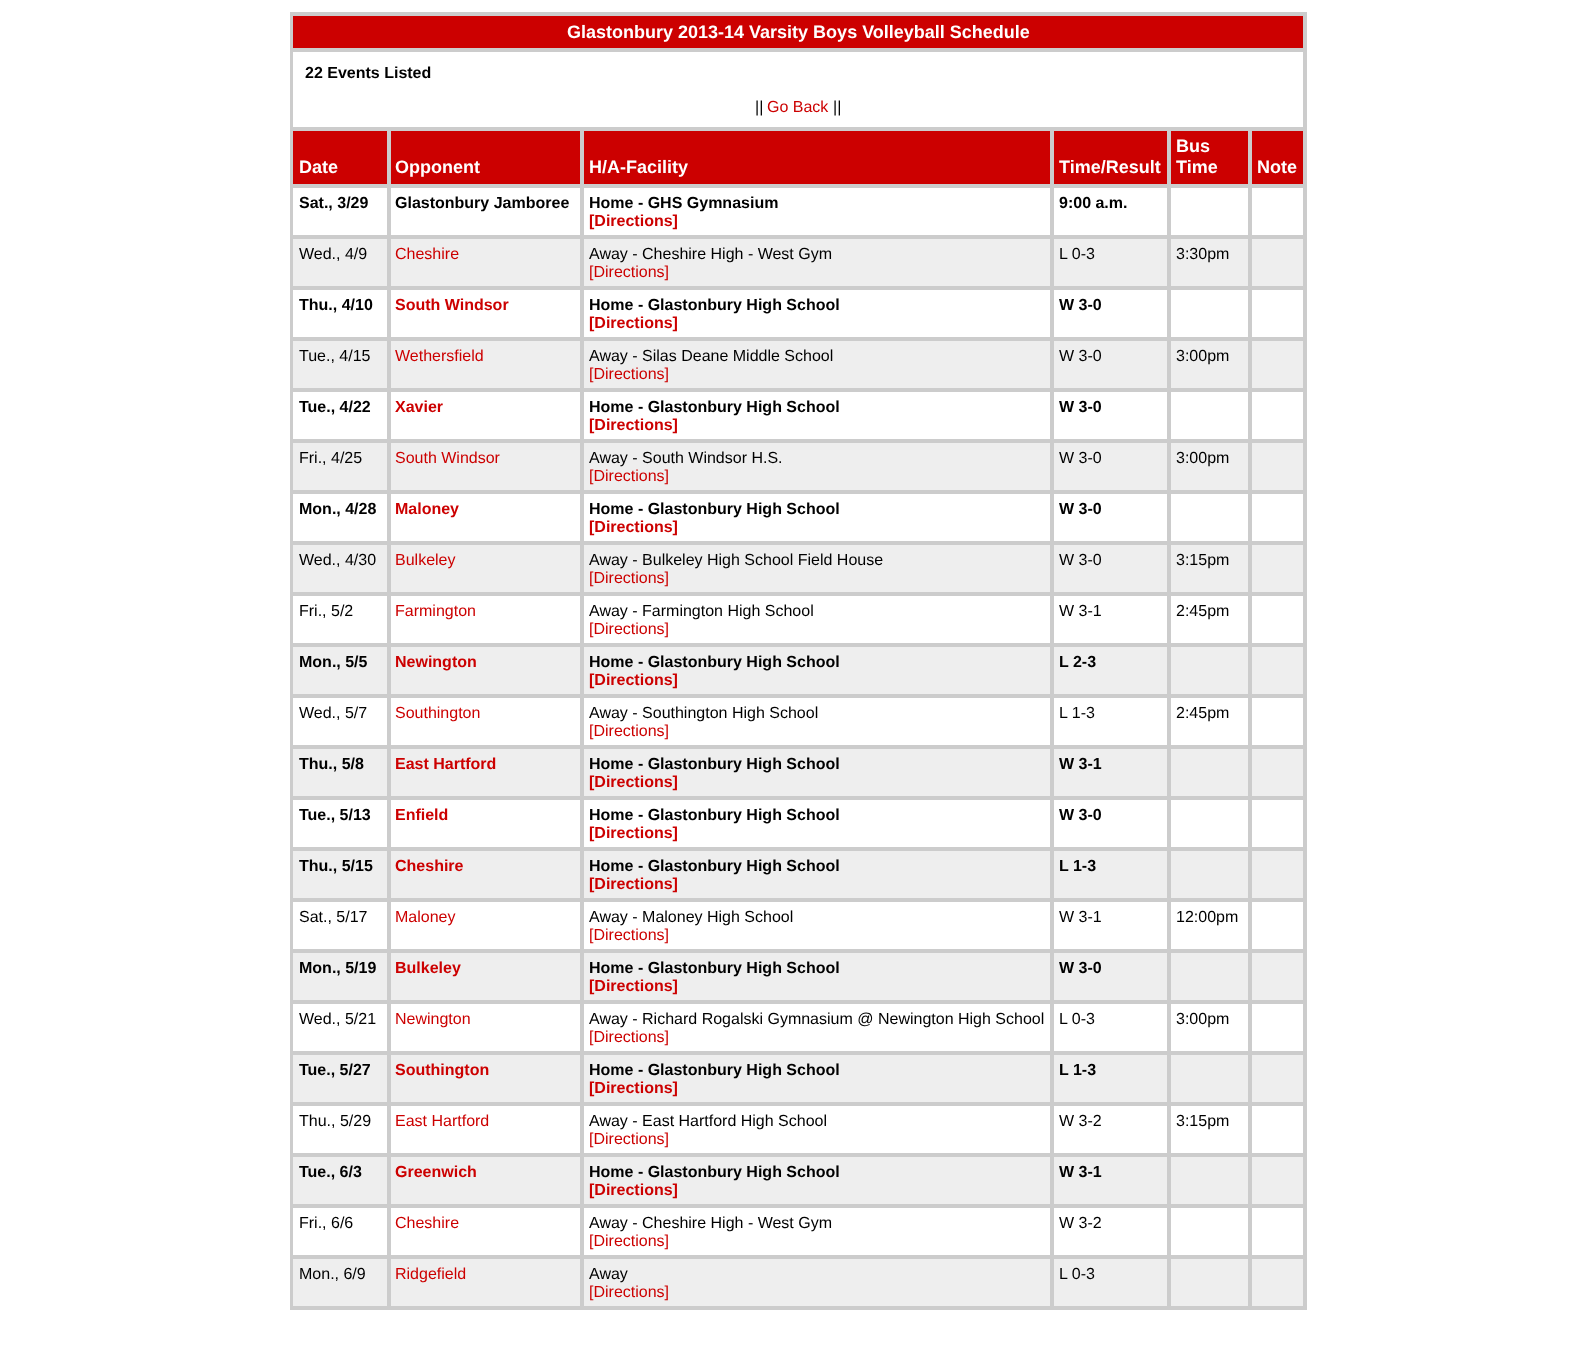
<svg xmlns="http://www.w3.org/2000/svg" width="1596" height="1359">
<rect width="100%" height="100%" fill="#fff"/>
<rect x="290" y="12" width="1017" height="1298" fill="#ccc"/>
<rect x="293" y="16" width="1010" height="32" fill="#c00"/>
<text x="567" y="38" style="font-family:Liberation Sans;font-size:18px;font-weight:bold;fill:#fff">Glastonbury 2013-14 Varsity Boys Volleyball Schedule</text>
<rect x="293" y="52" width="1010" height="75" fill="#fff"/>
<text x="305" y="78" style="font-family:Liberation Sans;font-size:16px;font-weight:bold;fill:#000">22 Events Listed</text>
<text x="755" y="112" style="font-family:Liberation Sans;font-size:16px;fill:#000">||</text>
<text x="767" y="112" style="font-family:Liberation Sans;font-size:16px;fill:#c00">Go Back</text>
<text x="833" y="112" style="font-family:Liberation Sans;font-size:16px;fill:#000">||</text>
<rect x="293" y="131" width="94" height="53" fill="#c00"/>
<text x="299" y="173" style="font-family:Liberation Sans;font-size:18px;font-weight:bold;fill:#fff">Date</text>
<rect x="391" y="131" width="189" height="53" fill="#c00"/>
<text x="395" y="173" style="font-family:Liberation Sans;font-size:18px;font-weight:bold;fill:#fff">Opponent</text>
<rect x="584" y="131" width="466" height="53" fill="#c00"/>
<text x="589" y="173" style="font-family:Liberation Sans;font-size:18px;font-weight:bold;fill:#fff">H/A-Facility</text>
<rect x="1054" y="131" width="113" height="53" fill="#c00"/>
<text x="1059" y="173" style="font-family:Liberation Sans;font-size:18px;font-weight:bold;fill:#fff">Time/Result</text>
<rect x="1171" y="131" width="77" height="53" fill="#c00"/>
<text x="1176" y="152" style="font-family:Liberation Sans;font-size:18px;font-weight:bold;fill:#fff">Bus</text>
<text x="1176" y="173" style="font-family:Liberation Sans;font-size:18px;font-weight:bold;fill:#fff">Time</text>
<rect x="1252" y="131" width="51" height="53" fill="#c00"/>
<text x="1257" y="173" style="font-family:Liberation Sans;font-size:18px;font-weight:bold;fill:#fff">Note</text>
<rect x="293" y="188" width="1010" height="47" fill="#fff"/>
<rect x="292" y="187" width="96" height="49" fill="none" stroke="#ccc" stroke-width="2"/>
<text x="299" y="208" style="font-family:Liberation Sans;font-size:16px;font-weight:bold;fill:#000">Sat., 3/29</text>
<rect x="390" y="187" width="191" height="49" fill="none" stroke="#ccc" stroke-width="2"/>
<text x="395" y="208" style="font-family:Liberation Sans;font-size:16px;font-weight:bold;fill:#000">Glastonbury Jamboree</text>
<rect x="583" y="187" width="468" height="49" fill="none" stroke="#ccc" stroke-width="2"/>
<text x="589" y="208" style="font-family:Liberation Sans;font-size:16px;font-weight:bold;fill:#000">Home - GHS Gymnasium</text>
<text x="589" y="226" style="font-family:Liberation Sans;font-size:16px;font-weight:bold;fill:#c00">[Directions]</text>
<rect x="1053" y="187" width="115" height="49" fill="none" stroke="#ccc" stroke-width="2"/>
<text x="1059" y="208" style="font-family:Liberation Sans;font-size:16px;font-weight:bold;fill:#000">9:00 a.m.</text>
<rect x="1170" y="187" width="79" height="49" fill="none" stroke="#ccc" stroke-width="2"/>
<rect x="1251" y="187" width="53" height="49" fill="none" stroke="#ccc" stroke-width="2"/>
<rect x="293" y="239" width="1010" height="47" fill="#eee"/>
<rect x="292" y="238" width="96" height="49" fill="none" stroke="#ccc" stroke-width="2"/>
<text x="299" y="259" style="font-family:Liberation Sans;font-size:16px;fill:#000">Wed., 4/9</text>
<rect x="390" y="238" width="191" height="49" fill="none" stroke="#ccc" stroke-width="2"/>
<text x="395" y="259" style="font-family:Liberation Sans;font-size:16px;fill:#c00">Cheshire</text>
<rect x="583" y="238" width="468" height="49" fill="none" stroke="#ccc" stroke-width="2"/>
<text x="589" y="259" style="font-family:Liberation Sans;font-size:16px;fill:#000">Away - Cheshire High - West Gym</text>
<text x="589" y="277" style="font-family:Liberation Sans;font-size:16px;fill:#c00">[Directions]</text>
<rect x="1053" y="238" width="115" height="49" fill="none" stroke="#ccc" stroke-width="2"/>
<text x="1059" y="259" style="font-family:Liberation Sans;font-size:16px;fill:#000">L 0-3</text>
<rect x="1170" y="238" width="79" height="49" fill="none" stroke="#ccc" stroke-width="2"/>
<text x="1176" y="259" style="font-family:Liberation Sans;font-size:16px;fill:#000">3:30pm</text>
<rect x="1251" y="238" width="53" height="49" fill="none" stroke="#ccc" stroke-width="2"/>
<rect x="293" y="290" width="1010" height="47" fill="#fff"/>
<rect x="292" y="289" width="96" height="49" fill="none" stroke="#ccc" stroke-width="2"/>
<text x="299" y="310" style="font-family:Liberation Sans;font-size:16px;font-weight:bold;fill:#000">Thu., 4/10</text>
<rect x="390" y="289" width="191" height="49" fill="none" stroke="#ccc" stroke-width="2"/>
<text x="395" y="310" style="font-family:Liberation Sans;font-size:16px;font-weight:bold;fill:#c00">South Windsor</text>
<rect x="583" y="289" width="468" height="49" fill="none" stroke="#ccc" stroke-width="2"/>
<text x="589" y="310" style="font-family:Liberation Sans;font-size:16px;font-weight:bold;fill:#000">Home - Glastonbury High School</text>
<text x="589" y="328" style="font-family:Liberation Sans;font-size:16px;font-weight:bold;fill:#c00">[Directions]</text>
<rect x="1053" y="289" width="115" height="49" fill="none" stroke="#ccc" stroke-width="2"/>
<text x="1059" y="310" style="font-family:Liberation Sans;font-size:16px;font-weight:bold;fill:#000">W 3-0</text>
<rect x="1170" y="289" width="79" height="49" fill="none" stroke="#ccc" stroke-width="2"/>
<rect x="1251" y="289" width="53" height="49" fill="none" stroke="#ccc" stroke-width="2"/>
<rect x="293" y="341" width="1010" height="47" fill="#eee"/>
<rect x="292" y="340" width="96" height="49" fill="none" stroke="#ccc" stroke-width="2"/>
<text x="299" y="361" style="font-family:Liberation Sans;font-size:16px;fill:#000">Tue., 4/15</text>
<rect x="390" y="340" width="191" height="49" fill="none" stroke="#ccc" stroke-width="2"/>
<text x="395" y="361" style="font-family:Liberation Sans;font-size:16px;fill:#c00">Wethersfield</text>
<rect x="583" y="340" width="468" height="49" fill="none" stroke="#ccc" stroke-width="2"/>
<text x="589" y="361" style="font-family:Liberation Sans;font-size:16px;fill:#000">Away - Silas Deane Middle School</text>
<text x="589" y="379" style="font-family:Liberation Sans;font-size:16px;fill:#c00">[Directions]</text>
<rect x="1053" y="340" width="115" height="49" fill="none" stroke="#ccc" stroke-width="2"/>
<text x="1059" y="361" style="font-family:Liberation Sans;font-size:16px;fill:#000">W 3-0</text>
<rect x="1170" y="340" width="79" height="49" fill="none" stroke="#ccc" stroke-width="2"/>
<text x="1176" y="361" style="font-family:Liberation Sans;font-size:16px;fill:#000">3:00pm</text>
<rect x="1251" y="340" width="53" height="49" fill="none" stroke="#ccc" stroke-width="2"/>
<rect x="293" y="392" width="1010" height="47" fill="#fff"/>
<rect x="292" y="391" width="96" height="49" fill="none" stroke="#ccc" stroke-width="2"/>
<text x="299" y="412" style="font-family:Liberation Sans;font-size:16px;font-weight:bold;fill:#000">Tue., 4/22</text>
<rect x="390" y="391" width="191" height="49" fill="none" stroke="#ccc" stroke-width="2"/>
<text x="395" y="412" style="font-family:Liberation Sans;font-size:16px;font-weight:bold;fill:#c00">Xavier</text>
<rect x="583" y="391" width="468" height="49" fill="none" stroke="#ccc" stroke-width="2"/>
<text x="589" y="412" style="font-family:Liberation Sans;font-size:16px;font-weight:bold;fill:#000">Home - Glastonbury High School</text>
<text x="589" y="430" style="font-family:Liberation Sans;font-size:16px;font-weight:bold;fill:#c00">[Directions]</text>
<rect x="1053" y="391" width="115" height="49" fill="none" stroke="#ccc" stroke-width="2"/>
<text x="1059" y="412" style="font-family:Liberation Sans;font-size:16px;font-weight:bold;fill:#000">W 3-0</text>
<rect x="1170" y="391" width="79" height="49" fill="none" stroke="#ccc" stroke-width="2"/>
<rect x="1251" y="391" width="53" height="49" fill="none" stroke="#ccc" stroke-width="2"/>
<rect x="293" y="443" width="1010" height="47" fill="#eee"/>
<rect x="292" y="442" width="96" height="49" fill="none" stroke="#ccc" stroke-width="2"/>
<text x="299" y="463" style="font-family:Liberation Sans;font-size:16px;fill:#000">Fri., 4/25</text>
<rect x="390" y="442" width="191" height="49" fill="none" stroke="#ccc" stroke-width="2"/>
<text x="395" y="463" style="font-family:Liberation Sans;font-size:16px;fill:#c00">South Windsor</text>
<rect x="583" y="442" width="468" height="49" fill="none" stroke="#ccc" stroke-width="2"/>
<text x="589" y="463" style="font-family:Liberation Sans;font-size:16px;fill:#000">Away - South Windsor H.S.</text>
<text x="589" y="481" style="font-family:Liberation Sans;font-size:16px;fill:#c00">[Directions]</text>
<rect x="1053" y="442" width="115" height="49" fill="none" stroke="#ccc" stroke-width="2"/>
<text x="1059" y="463" style="font-family:Liberation Sans;font-size:16px;fill:#000">W 3-0</text>
<rect x="1170" y="442" width="79" height="49" fill="none" stroke="#ccc" stroke-width="2"/>
<text x="1176" y="463" style="font-family:Liberation Sans;font-size:16px;fill:#000">3:00pm</text>
<rect x="1251" y="442" width="53" height="49" fill="none" stroke="#ccc" stroke-width="2"/>
<rect x="293" y="494" width="1010" height="47" fill="#fff"/>
<rect x="292" y="493" width="96" height="49" fill="none" stroke="#ccc" stroke-width="2"/>
<text x="299" y="514" style="font-family:Liberation Sans;font-size:16px;font-weight:bold;fill:#000">Mon., 4/28</text>
<rect x="390" y="493" width="191" height="49" fill="none" stroke="#ccc" stroke-width="2"/>
<text x="395" y="514" style="font-family:Liberation Sans;font-size:16px;font-weight:bold;fill:#c00">Maloney</text>
<rect x="583" y="493" width="468" height="49" fill="none" stroke="#ccc" stroke-width="2"/>
<text x="589" y="514" style="font-family:Liberation Sans;font-size:16px;font-weight:bold;fill:#000">Home - Glastonbury High School</text>
<text x="589" y="532" style="font-family:Liberation Sans;font-size:16px;font-weight:bold;fill:#c00">[Directions]</text>
<rect x="1053" y="493" width="115" height="49" fill="none" stroke="#ccc" stroke-width="2"/>
<text x="1059" y="514" style="font-family:Liberation Sans;font-size:16px;font-weight:bold;fill:#000">W 3-0</text>
<rect x="1170" y="493" width="79" height="49" fill="none" stroke="#ccc" stroke-width="2"/>
<rect x="1251" y="493" width="53" height="49" fill="none" stroke="#ccc" stroke-width="2"/>
<rect x="293" y="545" width="1010" height="47" fill="#eee"/>
<rect x="292" y="544" width="96" height="49" fill="none" stroke="#ccc" stroke-width="2"/>
<text x="299" y="565" style="font-family:Liberation Sans;font-size:16px;fill:#000">Wed., 4/30</text>
<rect x="390" y="544" width="191" height="49" fill="none" stroke="#ccc" stroke-width="2"/>
<text x="395" y="565" style="font-family:Liberation Sans;font-size:16px;fill:#c00">Bulkeley</text>
<rect x="583" y="544" width="468" height="49" fill="none" stroke="#ccc" stroke-width="2"/>
<text x="589" y="565" style="font-family:Liberation Sans;font-size:16px;fill:#000">Away - Bulkeley High School Field House</text>
<text x="589" y="583" style="font-family:Liberation Sans;font-size:16px;fill:#c00">[Directions]</text>
<rect x="1053" y="544" width="115" height="49" fill="none" stroke="#ccc" stroke-width="2"/>
<text x="1059" y="565" style="font-family:Liberation Sans;font-size:16px;fill:#000">W 3-0</text>
<rect x="1170" y="544" width="79" height="49" fill="none" stroke="#ccc" stroke-width="2"/>
<text x="1176" y="565" style="font-family:Liberation Sans;font-size:16px;fill:#000">3:15pm</text>
<rect x="1251" y="544" width="53" height="49" fill="none" stroke="#ccc" stroke-width="2"/>
<rect x="293" y="596" width="1010" height="47" fill="#fff"/>
<rect x="292" y="595" width="96" height="49" fill="none" stroke="#ccc" stroke-width="2"/>
<text x="299" y="616" style="font-family:Liberation Sans;font-size:16px;fill:#000">Fri., 5/2</text>
<rect x="390" y="595" width="191" height="49" fill="none" stroke="#ccc" stroke-width="2"/>
<text x="395" y="616" style="font-family:Liberation Sans;font-size:16px;fill:#c00">Farmington</text>
<rect x="583" y="595" width="468" height="49" fill="none" stroke="#ccc" stroke-width="2"/>
<text x="589" y="616" style="font-family:Liberation Sans;font-size:16px;fill:#000">Away - Farmington High School</text>
<text x="589" y="634" style="font-family:Liberation Sans;font-size:16px;fill:#c00">[Directions]</text>
<rect x="1053" y="595" width="115" height="49" fill="none" stroke="#ccc" stroke-width="2"/>
<text x="1059" y="616" style="font-family:Liberation Sans;font-size:16px;fill:#000">W 3-1</text>
<rect x="1170" y="595" width="79" height="49" fill="none" stroke="#ccc" stroke-width="2"/>
<text x="1176" y="616" style="font-family:Liberation Sans;font-size:16px;fill:#000">2:45pm</text>
<rect x="1251" y="595" width="53" height="49" fill="none" stroke="#ccc" stroke-width="2"/>
<rect x="293" y="647" width="1010" height="47" fill="#eee"/>
<rect x="292" y="646" width="96" height="49" fill="none" stroke="#ccc" stroke-width="2"/>
<text x="299" y="667" style="font-family:Liberation Sans;font-size:16px;font-weight:bold;fill:#000">Mon., 5/5</text>
<rect x="390" y="646" width="191" height="49" fill="none" stroke="#ccc" stroke-width="2"/>
<text x="395" y="667" style="font-family:Liberation Sans;font-size:16px;font-weight:bold;fill:#c00">Newington</text>
<rect x="583" y="646" width="468" height="49" fill="none" stroke="#ccc" stroke-width="2"/>
<text x="589" y="667" style="font-family:Liberation Sans;font-size:16px;font-weight:bold;fill:#000">Home - Glastonbury High School</text>
<text x="589" y="685" style="font-family:Liberation Sans;font-size:16px;font-weight:bold;fill:#c00">[Directions]</text>
<rect x="1053" y="646" width="115" height="49" fill="none" stroke="#ccc" stroke-width="2"/>
<text x="1059" y="667" style="font-family:Liberation Sans;font-size:16px;font-weight:bold;fill:#000">L 2-3</text>
<rect x="1170" y="646" width="79" height="49" fill="none" stroke="#ccc" stroke-width="2"/>
<rect x="1251" y="646" width="53" height="49" fill="none" stroke="#ccc" stroke-width="2"/>
<rect x="293" y="698" width="1010" height="47" fill="#fff"/>
<rect x="292" y="697" width="96" height="49" fill="none" stroke="#ccc" stroke-width="2"/>
<text x="299" y="718" style="font-family:Liberation Sans;font-size:16px;fill:#000">Wed., 5/7</text>
<rect x="390" y="697" width="191" height="49" fill="none" stroke="#ccc" stroke-width="2"/>
<text x="395" y="718" style="font-family:Liberation Sans;font-size:16px;fill:#c00">Southington</text>
<rect x="583" y="697" width="468" height="49" fill="none" stroke="#ccc" stroke-width="2"/>
<text x="589" y="718" style="font-family:Liberation Sans;font-size:16px;fill:#000">Away - Southington High School</text>
<text x="589" y="736" style="font-family:Liberation Sans;font-size:16px;fill:#c00">[Directions]</text>
<rect x="1053" y="697" width="115" height="49" fill="none" stroke="#ccc" stroke-width="2"/>
<text x="1059" y="718" style="font-family:Liberation Sans;font-size:16px;fill:#000">L 1-3</text>
<rect x="1170" y="697" width="79" height="49" fill="none" stroke="#ccc" stroke-width="2"/>
<text x="1176" y="718" style="font-family:Liberation Sans;font-size:16px;fill:#000">2:45pm</text>
<rect x="1251" y="697" width="53" height="49" fill="none" stroke="#ccc" stroke-width="2"/>
<rect x="293" y="749" width="1010" height="47" fill="#eee"/>
<rect x="292" y="748" width="96" height="49" fill="none" stroke="#ccc" stroke-width="2"/>
<text x="299" y="769" style="font-family:Liberation Sans;font-size:16px;font-weight:bold;fill:#000">Thu., 5/8</text>
<rect x="390" y="748" width="191" height="49" fill="none" stroke="#ccc" stroke-width="2"/>
<text x="395" y="769" style="font-family:Liberation Sans;font-size:16px;font-weight:bold;fill:#c00">East Hartford</text>
<rect x="583" y="748" width="468" height="49" fill="none" stroke="#ccc" stroke-width="2"/>
<text x="589" y="769" style="font-family:Liberation Sans;font-size:16px;font-weight:bold;fill:#000">Home - Glastonbury High School</text>
<text x="589" y="787" style="font-family:Liberation Sans;font-size:16px;font-weight:bold;fill:#c00">[Directions]</text>
<rect x="1053" y="748" width="115" height="49" fill="none" stroke="#ccc" stroke-width="2"/>
<text x="1059" y="769" style="font-family:Liberation Sans;font-size:16px;font-weight:bold;fill:#000">W 3-1</text>
<rect x="1170" y="748" width="79" height="49" fill="none" stroke="#ccc" stroke-width="2"/>
<rect x="1251" y="748" width="53" height="49" fill="none" stroke="#ccc" stroke-width="2"/>
<rect x="293" y="800" width="1010" height="47" fill="#fff"/>
<rect x="292" y="799" width="96" height="49" fill="none" stroke="#ccc" stroke-width="2"/>
<text x="299" y="820" style="font-family:Liberation Sans;font-size:16px;font-weight:bold;fill:#000">Tue., 5/13</text>
<rect x="390" y="799" width="191" height="49" fill="none" stroke="#ccc" stroke-width="2"/>
<text x="395" y="820" style="font-family:Liberation Sans;font-size:16px;font-weight:bold;fill:#c00">Enfield</text>
<rect x="583" y="799" width="468" height="49" fill="none" stroke="#ccc" stroke-width="2"/>
<text x="589" y="820" style="font-family:Liberation Sans;font-size:16px;font-weight:bold;fill:#000">Home - Glastonbury High School</text>
<text x="589" y="838" style="font-family:Liberation Sans;font-size:16px;font-weight:bold;fill:#c00">[Directions]</text>
<rect x="1053" y="799" width="115" height="49" fill="none" stroke="#ccc" stroke-width="2"/>
<text x="1059" y="820" style="font-family:Liberation Sans;font-size:16px;font-weight:bold;fill:#000">W 3-0</text>
<rect x="1170" y="799" width="79" height="49" fill="none" stroke="#ccc" stroke-width="2"/>
<rect x="1251" y="799" width="53" height="49" fill="none" stroke="#ccc" stroke-width="2"/>
<rect x="293" y="851" width="1010" height="47" fill="#eee"/>
<rect x="292" y="850" width="96" height="49" fill="none" stroke="#ccc" stroke-width="2"/>
<text x="299" y="871" style="font-family:Liberation Sans;font-size:16px;font-weight:bold;fill:#000">Thu., 5/15</text>
<rect x="390" y="850" width="191" height="49" fill="none" stroke="#ccc" stroke-width="2"/>
<text x="395" y="871" style="font-family:Liberation Sans;font-size:16px;font-weight:bold;fill:#c00">Cheshire</text>
<rect x="583" y="850" width="468" height="49" fill="none" stroke="#ccc" stroke-width="2"/>
<text x="589" y="871" style="font-family:Liberation Sans;font-size:16px;font-weight:bold;fill:#000">Home - Glastonbury High School</text>
<text x="589" y="889" style="font-family:Liberation Sans;font-size:16px;font-weight:bold;fill:#c00">[Directions]</text>
<rect x="1053" y="850" width="115" height="49" fill="none" stroke="#ccc" stroke-width="2"/>
<text x="1059" y="871" style="font-family:Liberation Sans;font-size:16px;font-weight:bold;fill:#000">L 1-3</text>
<rect x="1170" y="850" width="79" height="49" fill="none" stroke="#ccc" stroke-width="2"/>
<rect x="1251" y="850" width="53" height="49" fill="none" stroke="#ccc" stroke-width="2"/>
<rect x="293" y="902" width="1010" height="47" fill="#fff"/>
<rect x="292" y="901" width="96" height="49" fill="none" stroke="#ccc" stroke-width="2"/>
<text x="299" y="922" style="font-family:Liberation Sans;font-size:16px;fill:#000">Sat., 5/17</text>
<rect x="390" y="901" width="191" height="49" fill="none" stroke="#ccc" stroke-width="2"/>
<text x="395" y="922" style="font-family:Liberation Sans;font-size:16px;fill:#c00">Maloney</text>
<rect x="583" y="901" width="468" height="49" fill="none" stroke="#ccc" stroke-width="2"/>
<text x="589" y="922" style="font-family:Liberation Sans;font-size:16px;fill:#000">Away - Maloney High School</text>
<text x="589" y="940" style="font-family:Liberation Sans;font-size:16px;fill:#c00">[Directions]</text>
<rect x="1053" y="901" width="115" height="49" fill="none" stroke="#ccc" stroke-width="2"/>
<text x="1059" y="922" style="font-family:Liberation Sans;font-size:16px;fill:#000">W 3-1</text>
<rect x="1170" y="901" width="79" height="49" fill="none" stroke="#ccc" stroke-width="2"/>
<text x="1176" y="922" style="font-family:Liberation Sans;font-size:16px;fill:#000">12:00pm</text>
<rect x="1251" y="901" width="53" height="49" fill="none" stroke="#ccc" stroke-width="2"/>
<rect x="293" y="953" width="1010" height="47" fill="#eee"/>
<rect x="292" y="952" width="96" height="49" fill="none" stroke="#ccc" stroke-width="2"/>
<text x="299" y="973" style="font-family:Liberation Sans;font-size:16px;font-weight:bold;fill:#000">Mon., 5/19</text>
<rect x="390" y="952" width="191" height="49" fill="none" stroke="#ccc" stroke-width="2"/>
<text x="395" y="973" style="font-family:Liberation Sans;font-size:16px;font-weight:bold;fill:#c00">Bulkeley</text>
<rect x="583" y="952" width="468" height="49" fill="none" stroke="#ccc" stroke-width="2"/>
<text x="589" y="973" style="font-family:Liberation Sans;font-size:16px;font-weight:bold;fill:#000">Home - Glastonbury High School</text>
<text x="589" y="991" style="font-family:Liberation Sans;font-size:16px;font-weight:bold;fill:#c00">[Directions]</text>
<rect x="1053" y="952" width="115" height="49" fill="none" stroke="#ccc" stroke-width="2"/>
<text x="1059" y="973" style="font-family:Liberation Sans;font-size:16px;font-weight:bold;fill:#000">W 3-0</text>
<rect x="1170" y="952" width="79" height="49" fill="none" stroke="#ccc" stroke-width="2"/>
<rect x="1251" y="952" width="53" height="49" fill="none" stroke="#ccc" stroke-width="2"/>
<rect x="293" y="1004" width="1010" height="47" fill="#fff"/>
<rect x="292" y="1003" width="96" height="49" fill="none" stroke="#ccc" stroke-width="2"/>
<text x="299" y="1024" style="font-family:Liberation Sans;font-size:16px;fill:#000">Wed., 5/21</text>
<rect x="390" y="1003" width="191" height="49" fill="none" stroke="#ccc" stroke-width="2"/>
<text x="395" y="1024" style="font-family:Liberation Sans;font-size:16px;fill:#c00">Newington</text>
<rect x="583" y="1003" width="468" height="49" fill="none" stroke="#ccc" stroke-width="2"/>
<text x="589" y="1024" style="font-family:Liberation Sans;font-size:16px;fill:#000">Away - Richard Rogalski Gymnasium @ Newington High School</text>
<text x="589" y="1042" style="font-family:Liberation Sans;font-size:16px;fill:#c00">[Directions]</text>
<rect x="1053" y="1003" width="115" height="49" fill="none" stroke="#ccc" stroke-width="2"/>
<text x="1059" y="1024" style="font-family:Liberation Sans;font-size:16px;fill:#000">L 0-3</text>
<rect x="1170" y="1003" width="79" height="49" fill="none" stroke="#ccc" stroke-width="2"/>
<text x="1176" y="1024" style="font-family:Liberation Sans;font-size:16px;fill:#000">3:00pm</text>
<rect x="1251" y="1003" width="53" height="49" fill="none" stroke="#ccc" stroke-width="2"/>
<rect x="293" y="1055" width="1010" height="47" fill="#eee"/>
<rect x="292" y="1054" width="96" height="49" fill="none" stroke="#ccc" stroke-width="2"/>
<text x="299" y="1075" style="font-family:Liberation Sans;font-size:16px;font-weight:bold;fill:#000">Tue., 5/27</text>
<rect x="390" y="1054" width="191" height="49" fill="none" stroke="#ccc" stroke-width="2"/>
<text x="395" y="1075" style="font-family:Liberation Sans;font-size:16px;font-weight:bold;fill:#c00">Southington</text>
<rect x="583" y="1054" width="468" height="49" fill="none" stroke="#ccc" stroke-width="2"/>
<text x="589" y="1075" style="font-family:Liberation Sans;font-size:16px;font-weight:bold;fill:#000">Home - Glastonbury High School</text>
<text x="589" y="1093" style="font-family:Liberation Sans;font-size:16px;font-weight:bold;fill:#c00">[Directions]</text>
<rect x="1053" y="1054" width="115" height="49" fill="none" stroke="#ccc" stroke-width="2"/>
<text x="1059" y="1075" style="font-family:Liberation Sans;font-size:16px;font-weight:bold;fill:#000">L 1-3</text>
<rect x="1170" y="1054" width="79" height="49" fill="none" stroke="#ccc" stroke-width="2"/>
<rect x="1251" y="1054" width="53" height="49" fill="none" stroke="#ccc" stroke-width="2"/>
<rect x="293" y="1106" width="1010" height="47" fill="#fff"/>
<rect x="292" y="1105" width="96" height="49" fill="none" stroke="#ccc" stroke-width="2"/>
<text x="299" y="1126" style="font-family:Liberation Sans;font-size:16px;fill:#000">Thu., 5/29</text>
<rect x="390" y="1105" width="191" height="49" fill="none" stroke="#ccc" stroke-width="2"/>
<text x="395" y="1126" style="font-family:Liberation Sans;font-size:16px;fill:#c00">East Hartford</text>
<rect x="583" y="1105" width="468" height="49" fill="none" stroke="#ccc" stroke-width="2"/>
<text x="589" y="1126" style="font-family:Liberation Sans;font-size:16px;fill:#000">Away - East Hartford High School</text>
<text x="589" y="1144" style="font-family:Liberation Sans;font-size:16px;fill:#c00">[Directions]</text>
<rect x="1053" y="1105" width="115" height="49" fill="none" stroke="#ccc" stroke-width="2"/>
<text x="1059" y="1126" style="font-family:Liberation Sans;font-size:16px;fill:#000">W 3-2</text>
<rect x="1170" y="1105" width="79" height="49" fill="none" stroke="#ccc" stroke-width="2"/>
<text x="1176" y="1126" style="font-family:Liberation Sans;font-size:16px;fill:#000">3:15pm</text>
<rect x="1251" y="1105" width="53" height="49" fill="none" stroke="#ccc" stroke-width="2"/>
<rect x="293" y="1157" width="1010" height="47" fill="#eee"/>
<rect x="292" y="1156" width="96" height="49" fill="none" stroke="#ccc" stroke-width="2"/>
<text x="299" y="1177" style="font-family:Liberation Sans;font-size:16px;font-weight:bold;fill:#000">Tue., 6/3</text>
<rect x="390" y="1156" width="191" height="49" fill="none" stroke="#ccc" stroke-width="2"/>
<text x="395" y="1177" style="font-family:Liberation Sans;font-size:16px;font-weight:bold;fill:#c00">Greenwich</text>
<rect x="583" y="1156" width="468" height="49" fill="none" stroke="#ccc" stroke-width="2"/>
<text x="589" y="1177" style="font-family:Liberation Sans;font-size:16px;font-weight:bold;fill:#000">Home - Glastonbury High School</text>
<text x="589" y="1195" style="font-family:Liberation Sans;font-size:16px;font-weight:bold;fill:#c00">[Directions]</text>
<rect x="1053" y="1156" width="115" height="49" fill="none" stroke="#ccc" stroke-width="2"/>
<text x="1059" y="1177" style="font-family:Liberation Sans;font-size:16px;font-weight:bold;fill:#000">W 3-1</text>
<rect x="1170" y="1156" width="79" height="49" fill="none" stroke="#ccc" stroke-width="2"/>
<rect x="1251" y="1156" width="53" height="49" fill="none" stroke="#ccc" stroke-width="2"/>
<rect x="293" y="1208" width="1010" height="47" fill="#fff"/>
<rect x="292" y="1207" width="96" height="49" fill="none" stroke="#ccc" stroke-width="2"/>
<text x="299" y="1228" style="font-family:Liberation Sans;font-size:16px;fill:#000">Fri., 6/6</text>
<rect x="390" y="1207" width="191" height="49" fill="none" stroke="#ccc" stroke-width="2"/>
<text x="395" y="1228" style="font-family:Liberation Sans;font-size:16px;fill:#c00">Cheshire</text>
<rect x="583" y="1207" width="468" height="49" fill="none" stroke="#ccc" stroke-width="2"/>
<text x="589" y="1228" style="font-family:Liberation Sans;font-size:16px;fill:#000">Away - Cheshire High - West Gym</text>
<text x="589" y="1246" style="font-family:Liberation Sans;font-size:16px;fill:#c00">[Directions]</text>
<rect x="1053" y="1207" width="115" height="49" fill="none" stroke="#ccc" stroke-width="2"/>
<text x="1059" y="1228" style="font-family:Liberation Sans;font-size:16px;fill:#000">W 3-2</text>
<rect x="1170" y="1207" width="79" height="49" fill="none" stroke="#ccc" stroke-width="2"/>
<rect x="1251" y="1207" width="53" height="49" fill="none" stroke="#ccc" stroke-width="2"/>
<rect x="293" y="1259" width="1010" height="47" fill="#eee"/>
<rect x="292" y="1258" width="96" height="49" fill="none" stroke="#ccc" stroke-width="2"/>
<text x="299" y="1279" style="font-family:Liberation Sans;font-size:16px;fill:#000">Mon., 6/9</text>
<rect x="390" y="1258" width="191" height="49" fill="none" stroke="#ccc" stroke-width="2"/>
<text x="395" y="1279" style="font-family:Liberation Sans;font-size:16px;fill:#c00">Ridgefield</text>
<rect x="583" y="1258" width="468" height="49" fill="none" stroke="#ccc" stroke-width="2"/>
<text x="589" y="1279" style="font-family:Liberation Sans;font-size:16px;fill:#000">Away</text>
<text x="589" y="1297" style="font-family:Liberation Sans;font-size:16px;fill:#c00">[Directions]</text>
<rect x="1053" y="1258" width="115" height="49" fill="none" stroke="#ccc" stroke-width="2"/>
<text x="1059" y="1279" style="font-family:Liberation Sans;font-size:16px;fill:#000">L 0-3</text>
<rect x="1170" y="1258" width="79" height="49" fill="none" stroke="#ccc" stroke-width="2"/>
<rect x="1251" y="1258" width="53" height="49" fill="none" stroke="#ccc" stroke-width="2"/>
</svg>
